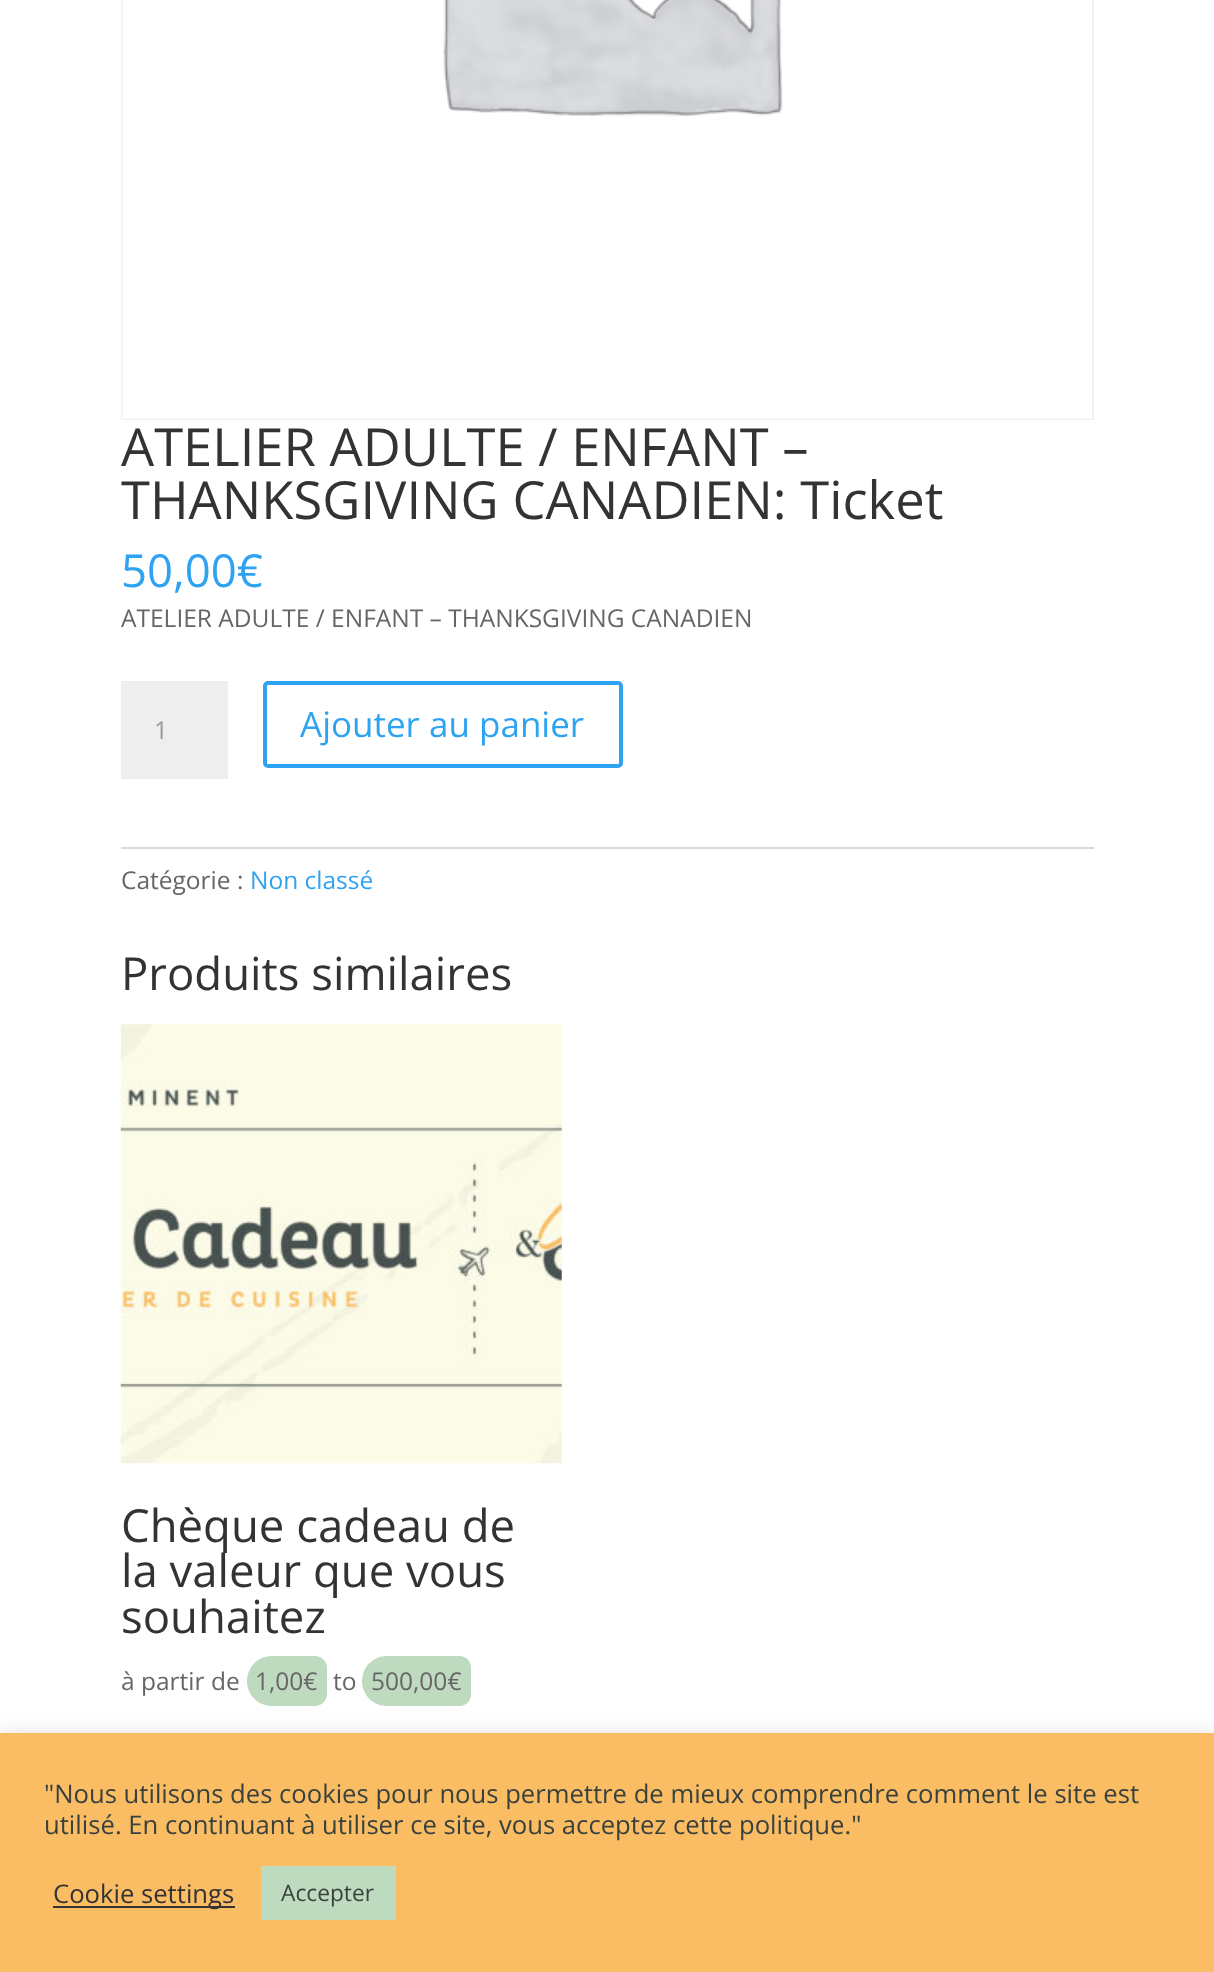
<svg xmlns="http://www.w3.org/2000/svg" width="1214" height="1972">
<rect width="100%" height="100%" fill="#fff"/>
<rect x="122" y="-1" width="971" height="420" fill="none" stroke="#f2f2f2" stroke-width="2"/>
<image x="122" y="0" width="970" height="419" href="media/1.png"/>
<text x="121" y="466" style="font-family:Open Sans;font-size:52.5px;fill:#333">ATELIER ADULTE / ENFANT –</text>
<text x="121" y="519" style="font-family:Open Sans;font-size:52.5px;fill:#333">THANKSGIVING CANADIEN: Ticket</text>
<text x="121" y="587" style="font-family:Open Sans;font-size:45.5px;fill:#2ea3f2">50,00€</text>
<text x="121" y="627" style="font-family:Open Sans;font-size:24.5px;fill:#666">ATELIER ADULTE / ENFANT – THANKSGIVING CANADIEN</text>
<rect x="121" y="681" width="107" height="98" fill="#eee"/>
<text x="154" y="739" style="font-family:Open Sans;font-size:24.5px;fill:#999">1</text>
<rect x="265" y="683" width="356" height="83" rx="3" fill="none" stroke="#2ea3f2" stroke-width="4"/>
<text x="300" y="737" style="font-family:Open Sans;font-size:35px;fill:#2ea3f2">Ajouter au panier</text>
<rect x="121" y="847" width="973" height="2" fill="#dadada"/>
<text x="121" y="889" style="font-family:Open Sans;font-size:24.5px;fill:#666">Catégorie :</text>
<text x="250" y="889" style="font-family:Open Sans;font-size:24.5px;fill:#2ea3f2">Non classé</text>
<text x="121" y="990" style="font-family:Open Sans;font-size:45.5px;fill:#333">Produits similaires</text>
<image x="120" y="1024" width="442" height="440" href="media/2.png"/>
<text x="121" y="1542" style="font-family:Open Sans;font-size:45.5px;fill:#333">Chèque cadeau de</text>
<text x="121" y="1587" style="font-family:Open Sans;font-size:45.5px;fill:#333">la valeur que vous</text>
<text x="121" y="1633" style="font-family:Open Sans;font-size:45.5px;fill:#333">souhaitez</text>
<text x="121" y="1690" style="font-family:Open Sans;font-size:24.5px;fill:#666">à partir de</text>
<path d="M272 1656h31v50h-31c-14 0-25-11-25-25c0-14 11-25 25-25z" fill="#bedbc0"/>
<path d="M303 1656h12c6.5 0 12 5.5 12 12v26c0 6.5-5.5 12-12 12h-12z" fill="#bedbc0"/>
<text x="255" y="1690" style="font-family:Open Sans;font-size:24.5px;fill:#666">1,00€</text>
<text x="333" y="1690" style="font-family:Open Sans;font-size:24.5px;fill:#666">to</text>
<path d="M387 1656h61v50h-61c-14 0-25-11-25-25c0-14 11-25 25-25z" fill="#bedbc0"/>
<path d="M448 1656h11.5c6.5 0 11.5 5 11.5 11.5v27c0 6.5-5 11.5-11.5 11.5h-11.5z" fill="#bedbc0"/>
<text x="371" y="1690" style="font-family:Open Sans;font-size:24.5px;fill:#666">500,00€</text>
<rect y="1731" width="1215" height="240" fill="#acabab4d" filter="blur(9px)"/>
<rect y="1733" width="1214" height="239" fill="#fabd64"/>
<text x="44" y="1803" style="font-family:Open Sans;font-size:25.65px;fill:#38413e">"Nous utilisons des cookies pour nous permettre de mieux comprendre comment le site est</text>
<text x="44" y="1834" style="font-family:Open Sans;font-size:25.65px;fill:#38413e">utilisé. En continuant à utiliser ce site, vous acceptez cette politique."</text>
<rect x="53" y="1906" width="182" height="2" fill="#333"/>
<text x="53" y="1903" style="font-family:Open Sans;font-size:25.65px;fill:#333">Cookie settings</text>
<rect x="261" y="1866" width="135" height="54" fill="#bedbc0"/>
<text x="281" y="1901" style="font-family:Open Sans;font-size:22.75px;fill:#38413e">Accepter</text>
</svg>
